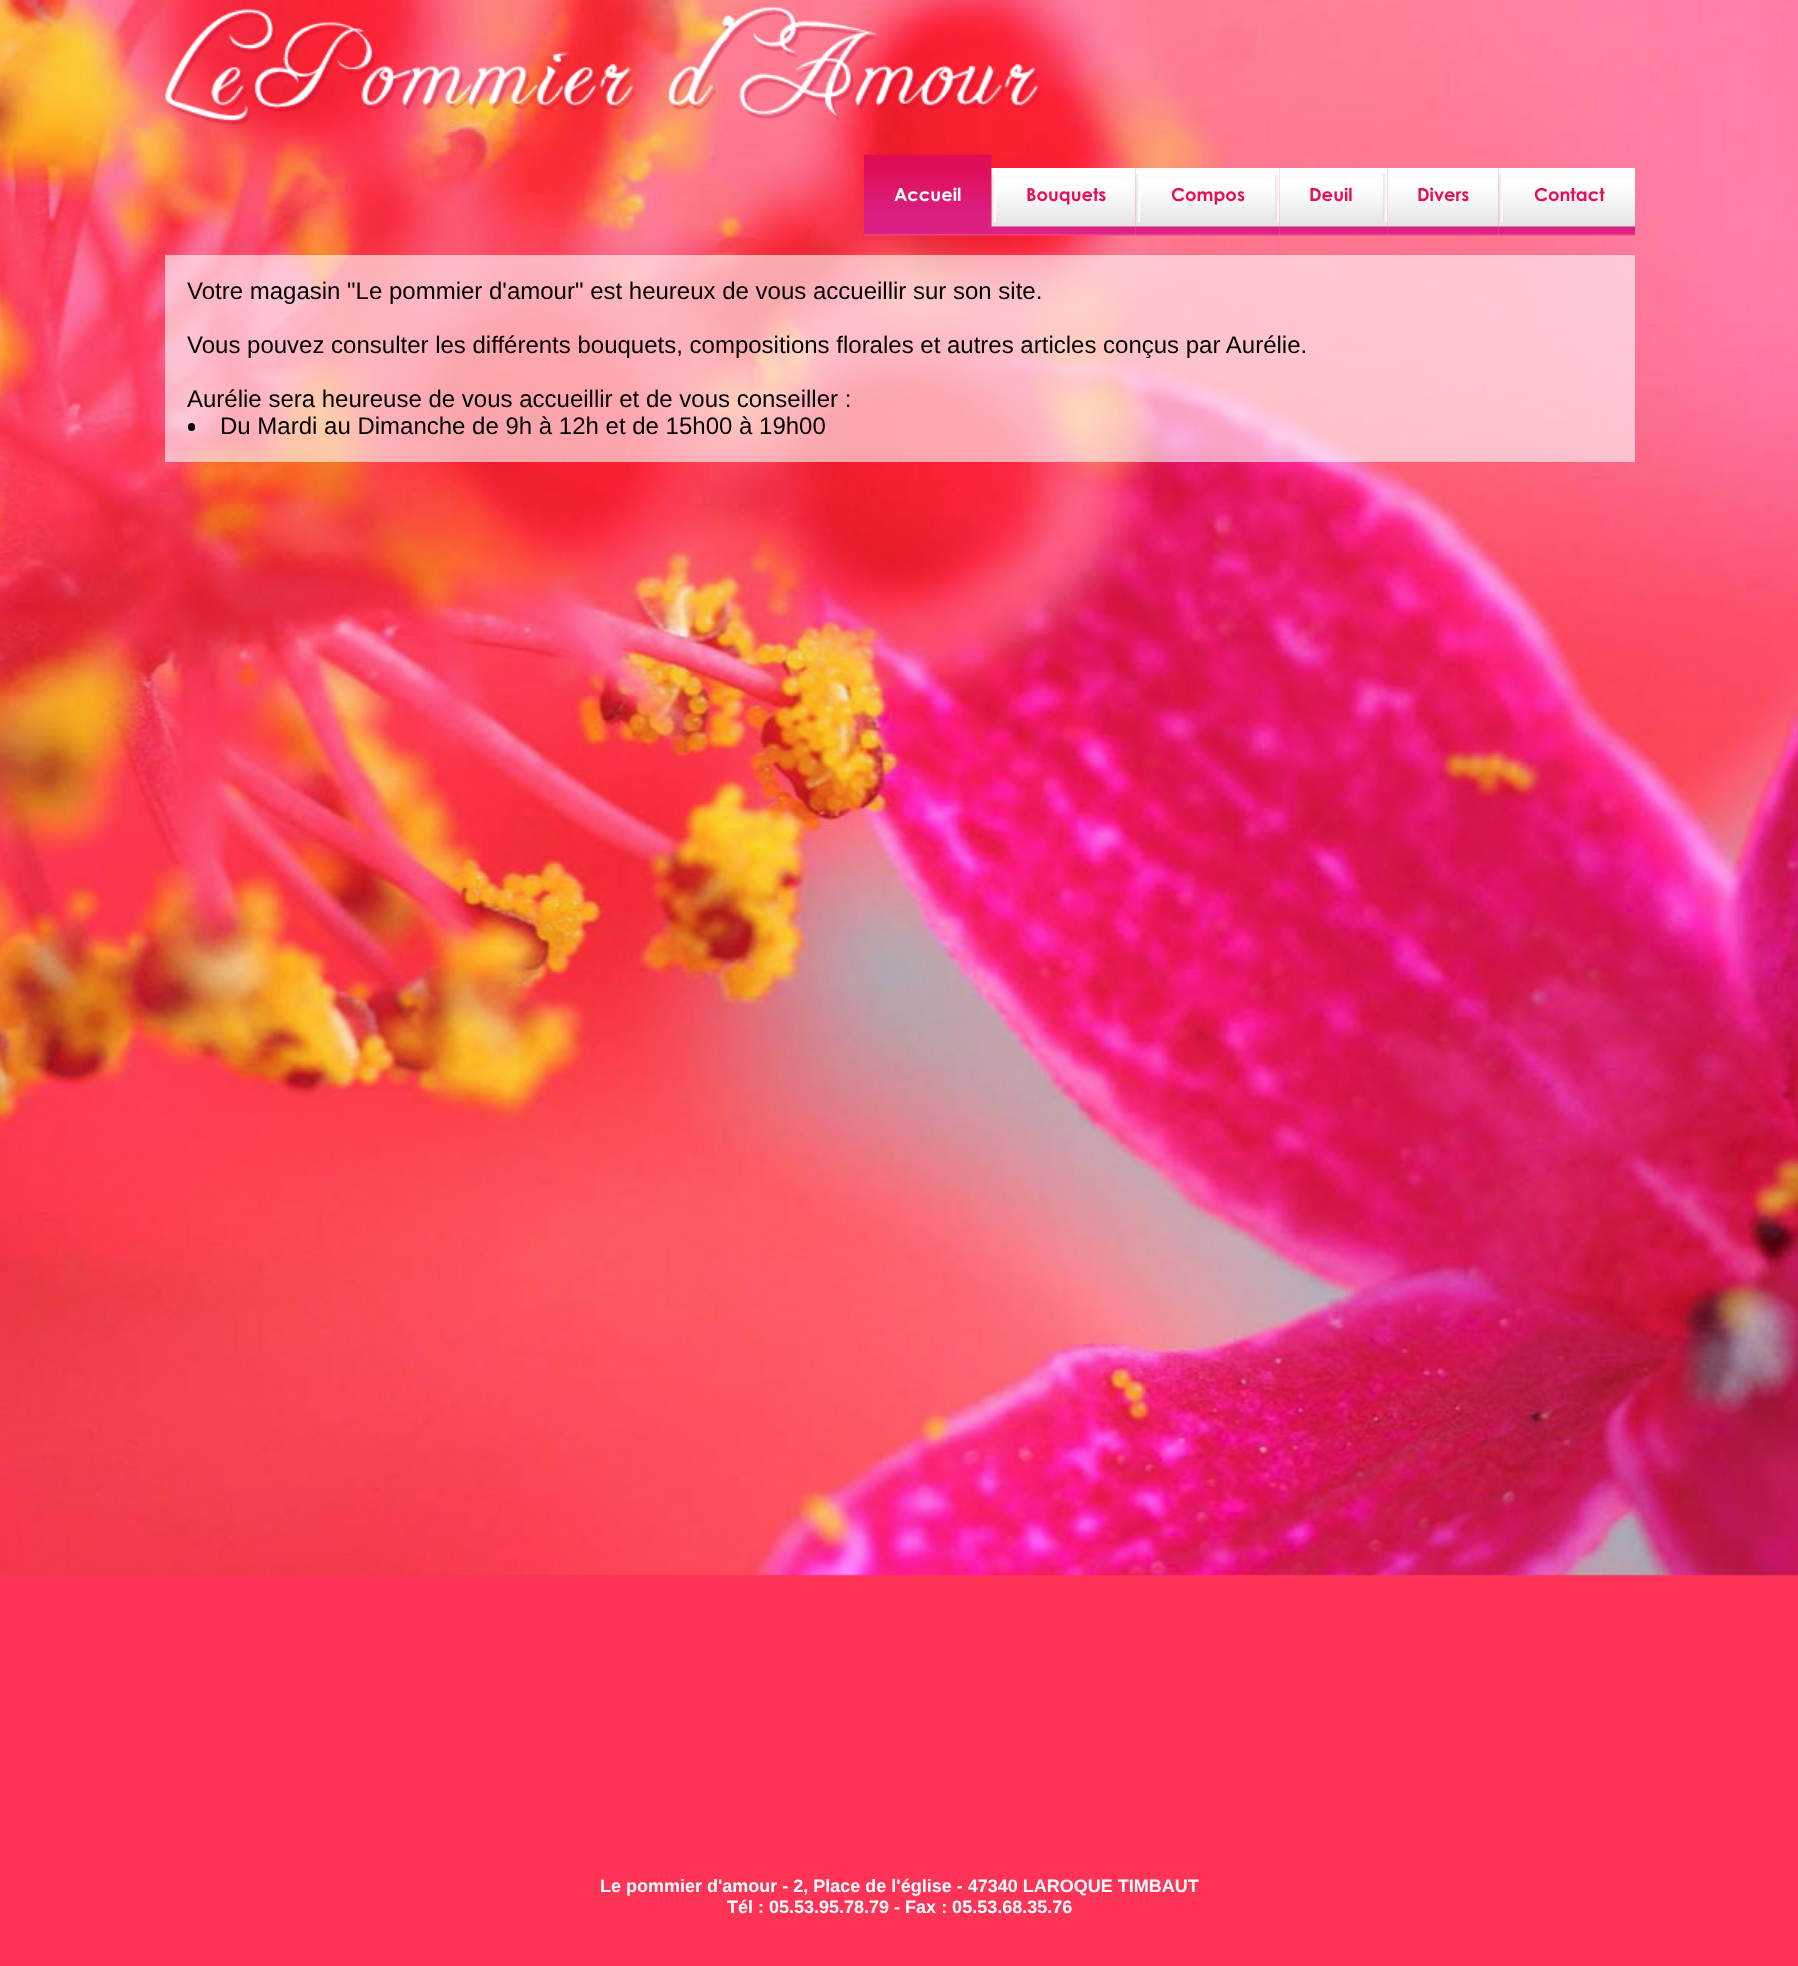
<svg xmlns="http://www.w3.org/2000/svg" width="1798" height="1966">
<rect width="100%" height="100%" fill="#ff3356"/>
<image x="0" y="0" width="1798" height="1576" href="media/1.png"/>
<image x="165" y="7" width="876" height="118" href="media/2.png"/>
<image x="864" y="154" width="128" height="82" href="media/3.png"/>
<text x="894" y="201" style="font-family:Century Gothic;font-size:18px;font-weight:bold;fill:#fff">Accueil</text>
<image x="991" y="168" width="5" height="68" href="media/4.png"/>
<image x="996" y="168" width="140" height="68" href="media/5.png"/>
<text x="1026" y="201" style="font-family:Century Gothic;font-size:18px;font-weight:bold;fill:#e80f56">Bouquets</text>
<image x="1135" y="168" width="5" height="68" href="media/6.png"/>
<image x="1140" y="168" width="135" height="68" href="media/7.png"/>
<text x="1171" y="201" style="font-family:Century Gothic;font-size:18px;font-weight:bold;fill:#e80f56">Compos</text>
<image x="1275" y="168" width="5" height="68" href="media/8.png"/>
<image x="1279" y="168" width="104" height="68" href="media/9.png"/>
<text x="1309" y="201" style="font-family:Century Gothic;font-size:18px;font-weight:bold;fill:#e80f56">Deuil</text>
<image x="1383" y="168" width="5" height="68" href="media/10.png"/>
<image x="1387" y="168" width="112" height="68" href="media/11.png"/>
<text x="1417" y="201" style="font-family:Century Gothic;font-size:18px;font-weight:bold;fill:#e80f56">Divers</text>
<image x="1498" y="168" width="5" height="68" href="media/12.png"/>
<image x="1503" y="168" width="132" height="68" href="media/13.png"/>
<text x="1534" y="201" style="font-family:Century Gothic;font-size:18px;font-weight:bold;fill:#e80f56">Contact</text>
<rect x="165" y="255" width="1470" height="207" fill="#ffffff99"/>
<text x="187" y="299" style="font-family:Liberation Sans;font-size:24px;fill:#000">Votre magasin "Le pommier d'amour" est heureux de vous accueillir sur son site.</text>
<text x="187" y="353" style="font-family:Liberation Sans;font-size:24px;fill:#000">Vous pouvez consulter les différents bouquets, compositions florales et autres articles conçus par Aurélie.</text>
<text x="187" y="407" style="font-family:Liberation Sans;font-size:24px;fill:#000">Aurélie sera heureuse de vous accueillir et de vous conseiller :</text>
<rect x="188" y="423" width="7" height="8" rx="3.5" fill="#000"/>
<text x="220" y="434" style="font-family:Liberation Sans;font-size:24px;fill:#000">Du Mardi au Dimanche de 9h à 12h et de 15h00 à 19h00</text>
<text x="600" y="1892" style="font-family:Liberation Sans;font-size:18px;font-weight:bold;fill:#fff">Le pommier d'amour - 2, Place de l'église - 47340 LAROQUE TIMBAUT</text>
<text x="727" y="1913" style="font-family:Liberation Sans;font-size:18px;font-weight:bold;fill:#fff">Tél : 05.53.95.78.79 - Fax : 05.53.68.35.76</text>
</svg>
